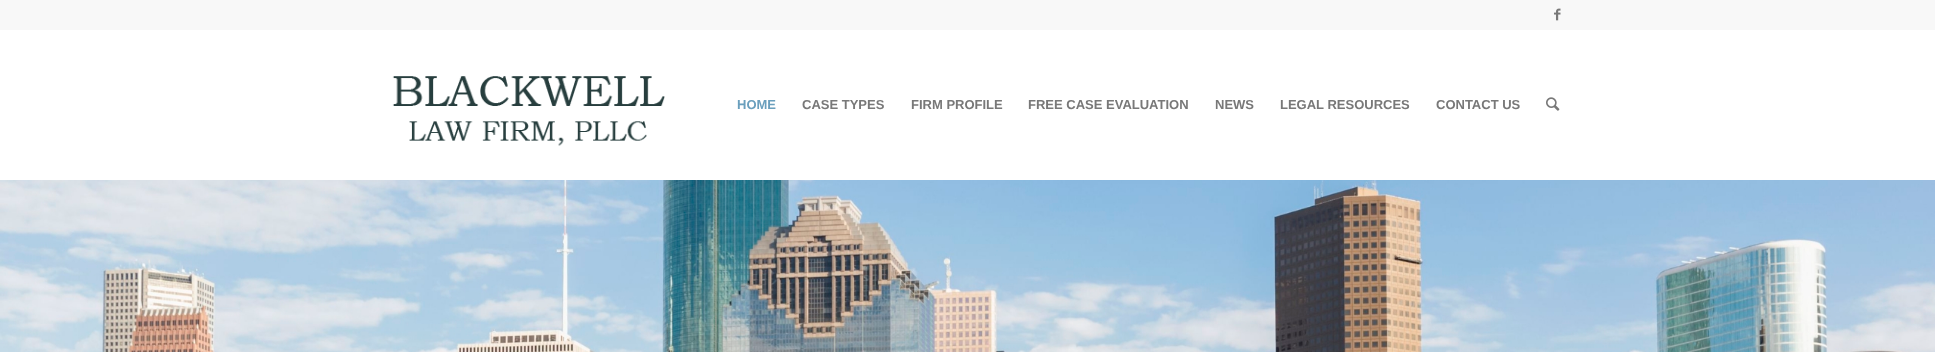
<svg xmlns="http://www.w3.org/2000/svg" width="1935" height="352">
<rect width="100%" height="100%" fill="#fff"/>
<rect width="1935" height="30" fill="#f8f8f8"/>
<image x="1554" y="8" width="7" height="13" href="media/1.png"/>
<image x="392" y="76" width="273" height="70" href="media/2.png"/>
<text x="737" y="109" style="font-family:Liberation Sans;font-size:13px;font-weight:bold;fill:#6a9fbd">HOME</text>
<text x="802" y="109" style="font-family:Liberation Sans;font-size:13px;font-weight:bold;fill:#787878">CASE TYPES</text>
<text x="911" y="109" style="font-family:Liberation Sans;font-size:13px;font-weight:bold;fill:#787878">FIRM PROFILE</text>
<text x="1028" y="109" style="font-family:Liberation Sans;font-size:13px;font-weight:bold;fill:#787878">FREE CASE EVALUATION</text>
<text x="1215" y="109" style="font-family:Liberation Sans;font-size:13px;font-weight:bold;fill:#787878">NEWS</text>
<text x="1280" y="109" style="font-family:Liberation Sans;font-size:13px;font-weight:bold;fill:#787878">LEGAL RESOURCES</text>
<text x="1436" y="109" style="font-family:Liberation Sans;font-size:13px;font-weight:bold;fill:#787878">CONTACT US</text>
<image x="1546" y="97" width="14" height="14" href="media/3.png"/>
<image x="0" y="180" width="1935" height="172" href="media/4.png"/>
</svg>
